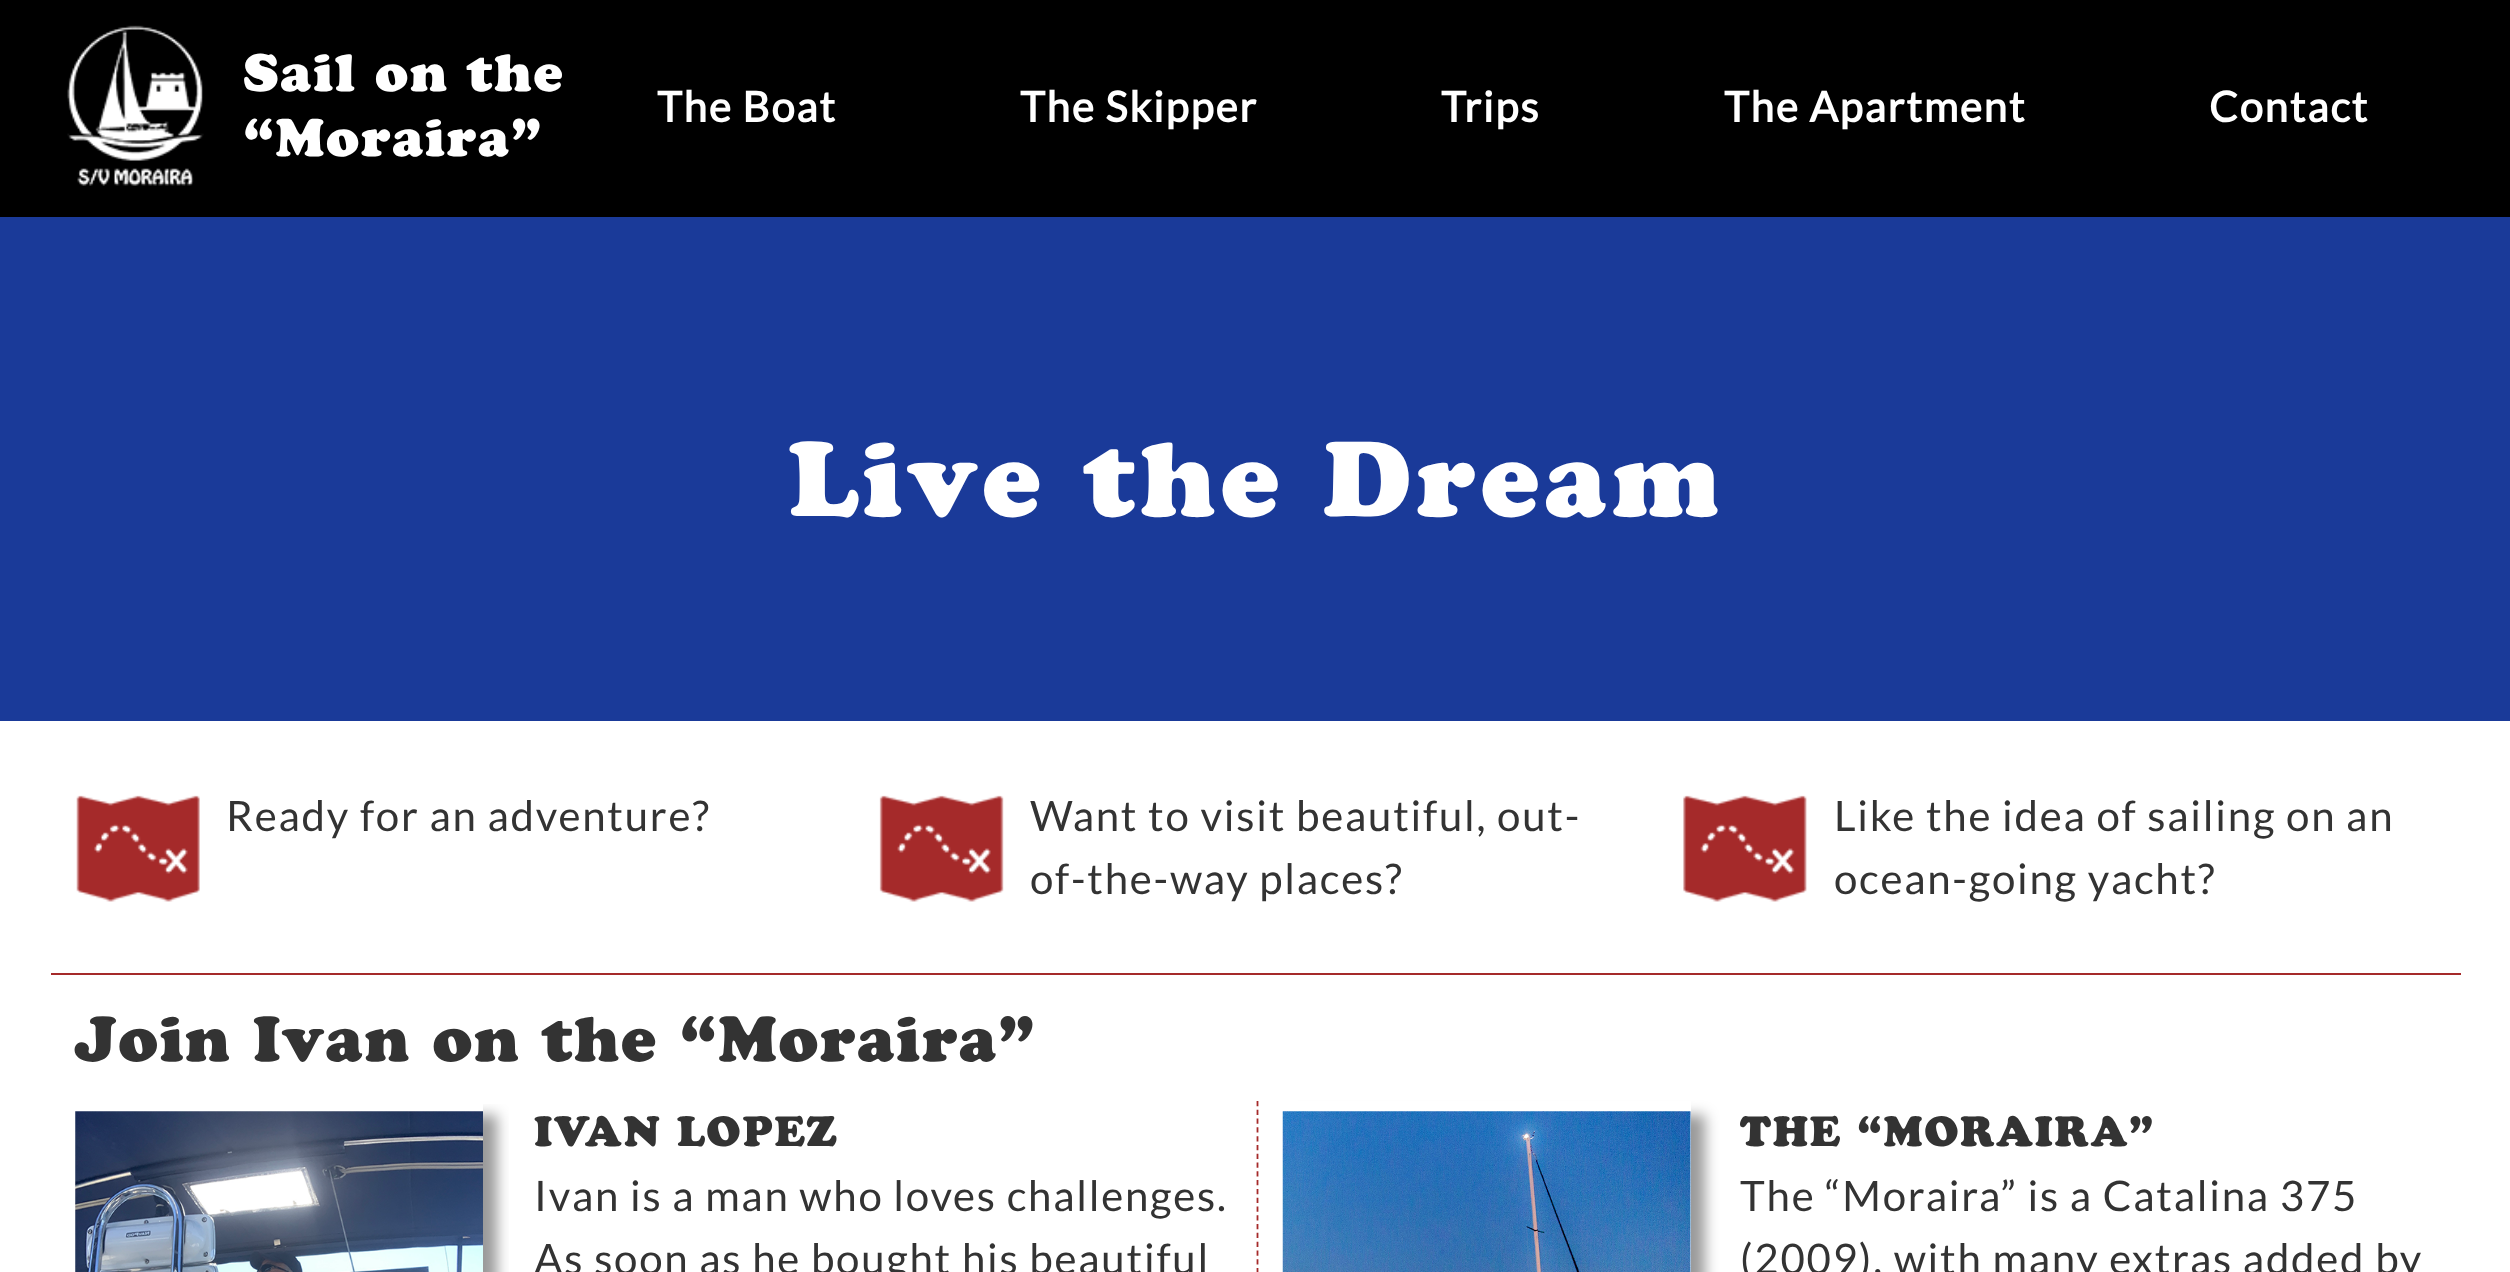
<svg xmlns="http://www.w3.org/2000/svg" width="2510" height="1272">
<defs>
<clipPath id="clip1"><rect x="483" y="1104" width="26" height="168"/></clipPath>
<clipPath id="clip2"><path d="M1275 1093h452v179h-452zm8 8h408v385h-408z" clip-rule="evenodd"/></clipPath>
</defs>
<rect width="100%" height="100%" fill="#fff"/>
<rect width="2510" height="217" fill="#000"/>
<image x="67" y="25" width="137" height="161" href="media/1.png"/>
<text x="243" y="91" style="font-family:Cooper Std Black;font-size:52.5px;font-weight:900;letter-spacing:1.75px;fill:#fff">Sail on the</text>
<text x="243" y="156" style="font-family:Cooper Std Black;font-size:52.5px;font-weight:900;letter-spacing:1.75px;fill:#fff">“Moraira”</text>
<text x="657" y="122" style="font-family:Lato;font-size:42px;font-weight:bold;letter-spacing:1.75px;fill:#fff">The Boat</text>
<text x="1020" y="122" style="font-family:Lato;font-size:42px;font-weight:bold;letter-spacing:1.75px;fill:#fff">The Skipper</text>
<text x="1441" y="122" style="font-family:Lato;font-size:42px;font-weight:bold;letter-spacing:1.75px;fill:#fff">Trips</text>
<text x="1724" y="122" style="font-family:Lato;font-size:42px;font-weight:bold;letter-spacing:1.75px;fill:#fff">The Apartment</text>
<text x="2209" y="122" style="font-family:Lato;font-size:42px;font-weight:bold;letter-spacing:1.75px;fill:#fff">Contact</text>
<rect y="217" width="2510" height="504" fill="#1a3a99"/>
<text x="788" y="516" style="font-family:Cooper Std Black;font-size:105px;font-weight:900;letter-spacing:5.25px;fill:#fff">Live the Dream</text>
<image x="76" y="795" width="124" height="107" href="media/2.png"/>
<text x="226" y="831" style="font-family:Lato;font-size:42px;letter-spacing:1.75px;fill:#333">Ready for an adventure?</text>
<image x="879" y="795" width="125" height="107" href="media/3.png"/>
<text x="1030" y="831" style="font-family:Lato;font-size:42px;letter-spacing:1.75px;fill:#333">Want to visit beautiful, out-</text>
<text x="1030" y="894" style="font-family:Lato;font-size:42px;letter-spacing:1.75px;fill:#333">of-the-way places?</text>
<image x="1683" y="795" width="124" height="107" href="media/4.png"/>
<text x="1834" y="831" style="font-family:Lato;font-size:42px;letter-spacing:1.75px;fill:#333">Like the idea of sailing on an</text>
<text x="1834" y="894" style="font-family:Lato;font-size:42px;letter-spacing:1.75px;fill:#333">ocean-going yacht?</text>
<rect x="51" y="973" width="2410" height="2" fill="#a52a2a"/>
<text x="75" y="1061" style="font-family:Cooper Std Black;font-size:63px;font-weight:900;letter-spacing:1.75px;fill:#333">Join Ivan on the “Moraira”</text>
<g clip-path="url(#clip1)">
<rect x="89" y="1115" width="408" height="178" fill="#00000066" filter="blur(7px)"/>
</g>
<image x="75" y="1111" width="408" height="161" href="media/5.png"/>
<text x="534" y="1146" style="font-family:Cooper Std Black;font-size:42px;font-weight:900;letter-spacing:1.75px;fill:#333">IVAN LOPEZ</text>
<text x="534" y="1211" style="font-family:Lato;font-size:42px;letter-spacing:1.75px;fill:#333">Ivan is a man who loves challenges.</text>
<text x="534" y="1274" style="font-family:Lato;font-size:42px;letter-spacing:1.75px;fill:#333">As soon as he bought his beautiful</text>
<path d="M1257.5 1101v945" fill="none" stroke="#a52a2a" stroke-width="1.8" stroke-dasharray="5.25 3.54"/>
<g clip-path="url(#clip2)">
<rect x="1297" y="1115" width="408" height="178" fill="#00000066" filter="blur(7px)"/>
</g>
<image x="1282" y="1111" width="409" height="161" href="media/6.png"/>
<text x="1740" y="1146" style="font-family:Cooper Std Black;font-size:42px;font-weight:900;letter-spacing:1.75px;fill:#333">THE “MORAIRA”</text>
<text x="1740" y="1211" style="font-family:Lato;font-size:42px;letter-spacing:1.75px;fill:#333">The “Moraira” is a Catalina 375</text>
<text x="1740" y="1274" style="font-family:Lato;font-size:42px;letter-spacing:1.75px;fill:#333">(2009), with many extras added by</text>
</svg>
